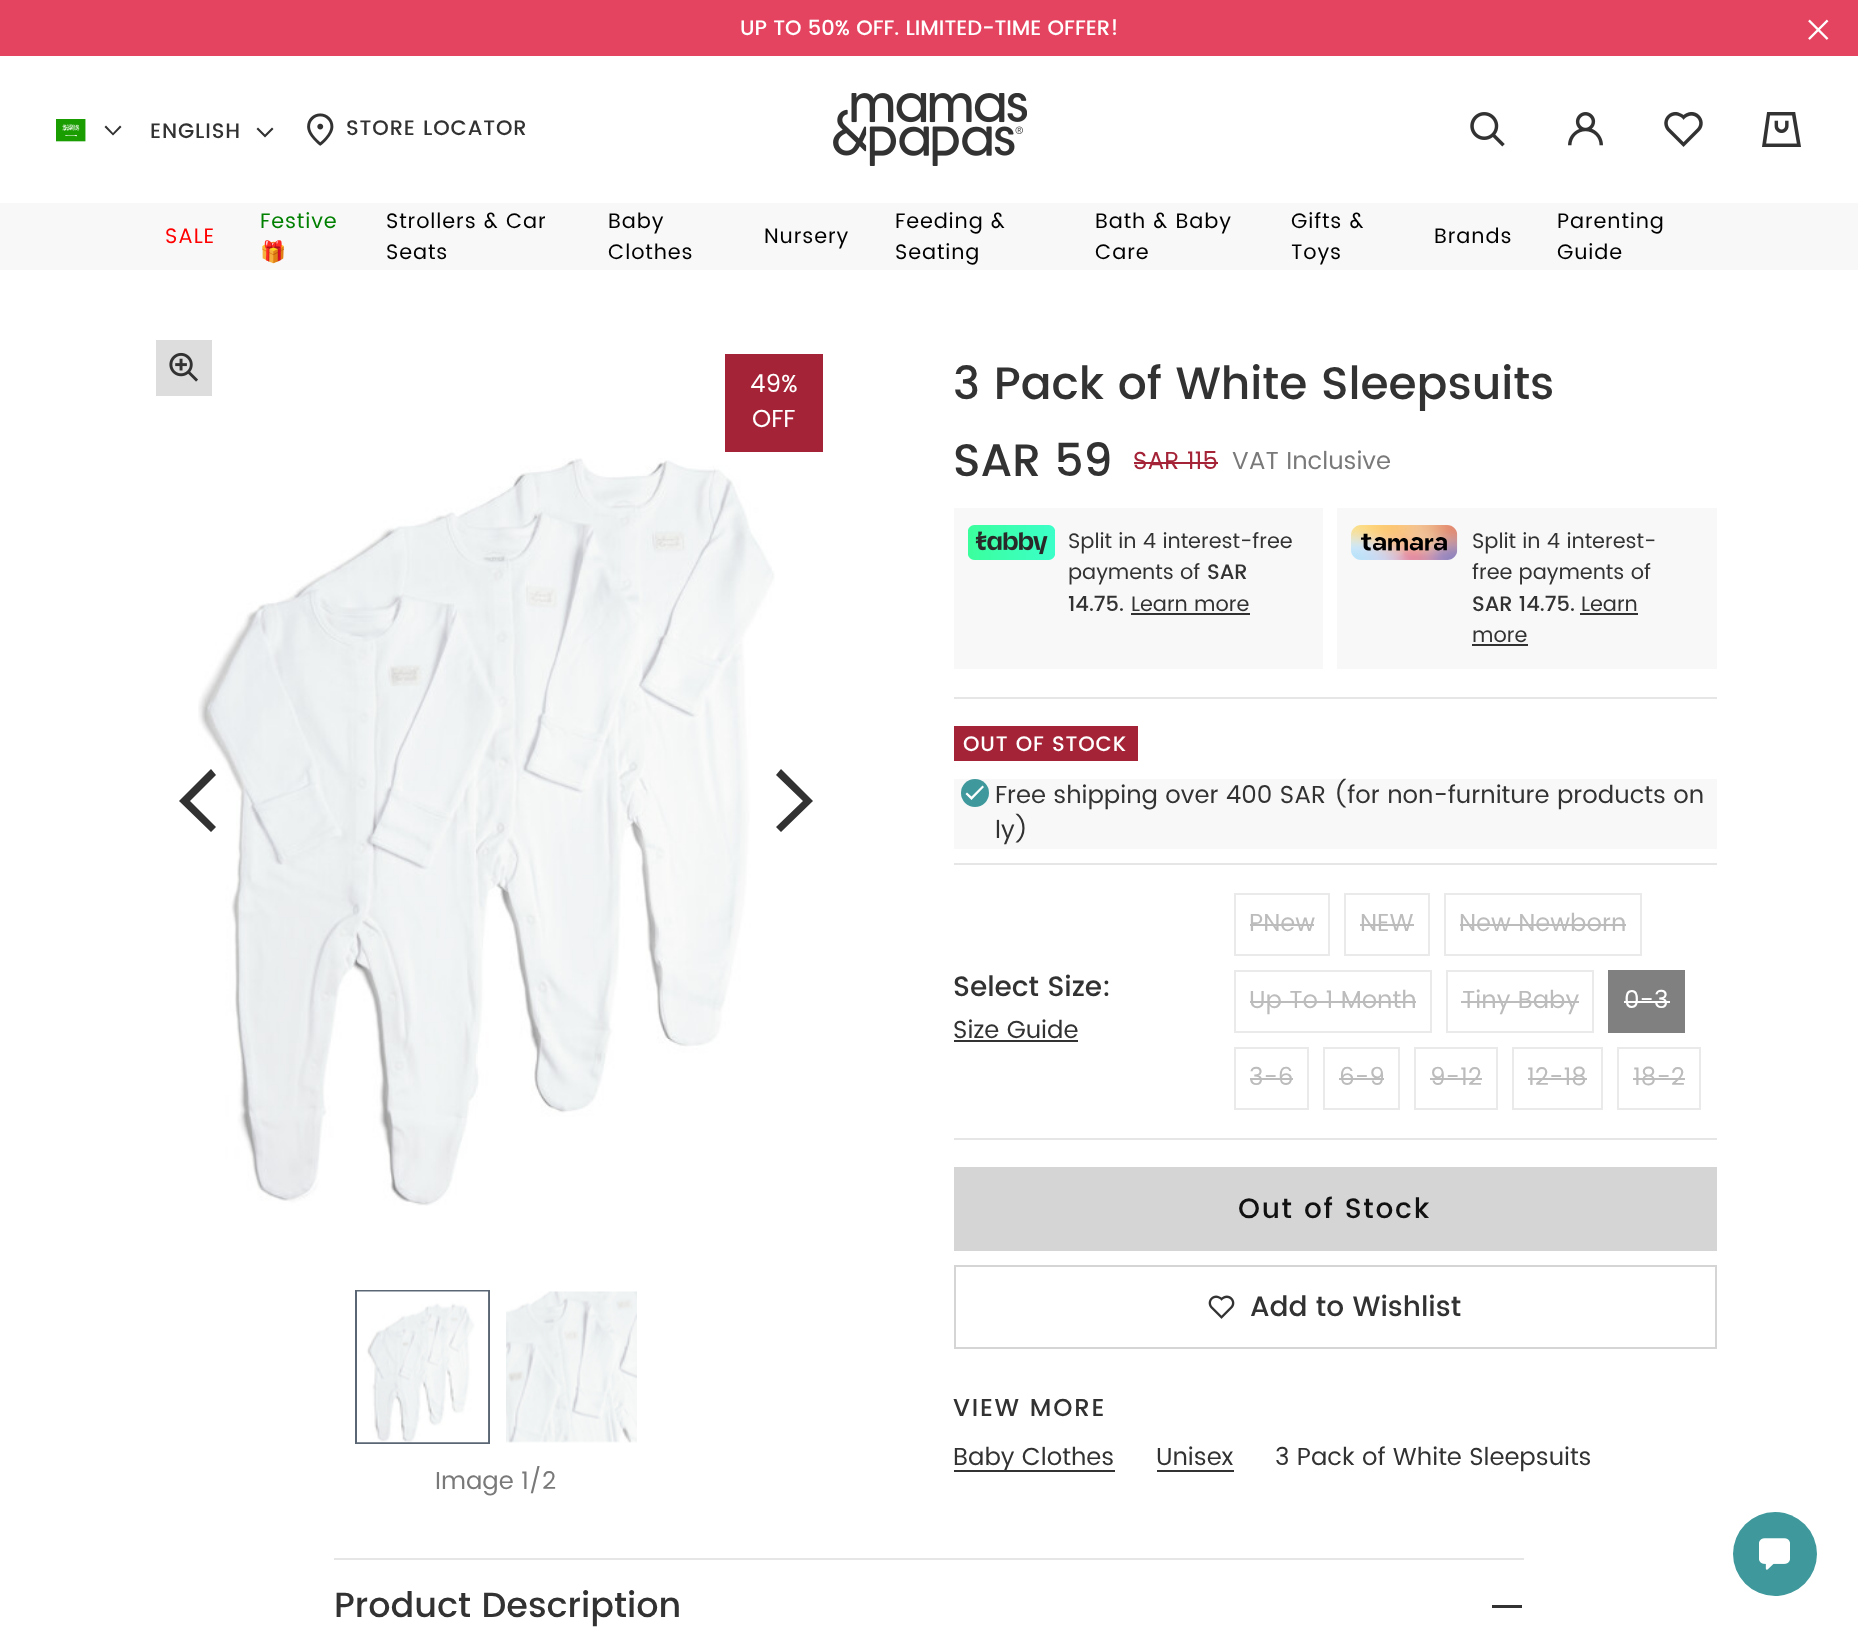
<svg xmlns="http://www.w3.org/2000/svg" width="1858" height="1638">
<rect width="100%" height="100%" fill="#fff"/>
<rect width="1858" height="56" fill="#e44460"/>
<text x="740" y="35" style="font-family:Poppins;font-size:21px;font-weight:500;fill:#fff">UP TO 50% OFF. LIMITED-TIME OFFER!</text>
<image x="1808" y="19" width="21" height="21" href="media/1.png"/>
<image x="56" y="119" width="30" height="23" href="media/2.png"/>
<path d="M120 125.5l-7 7.5l-7-7.5l-1.5 1.5l8.5 8.5l8.5-8.5z" fill="#323232"/>
<text x="150" y="138" style="font-family:Poppins;font-size:21px;font-weight:500;letter-spacing:0.9px;fill:#323232">ENGLISH</text>
<path d="M272 127.5l-7 7l-7-7l-1.5 1.5l8.5 8.5l8.5-8.5z" fill="#323232"/>
<image x="307" y="113" width="27" height="33" href="media/3.png"/>
<text x="346" y="135" style="font-family:Poppins;font-size:21px;font-weight:500;letter-spacing:0.9px;fill:#323232">STORE LOCATOR</text>
<image x="833" y="93" width="194" height="73" href="media/4.png"/>
<image x="1470" y="112" width="35" height="35" href="media/5.png"/>
<image x="1568" y="112" width="35" height="34" href="media/6.png"/>
<image x="1664" y="111" width="39" height="36" href="media/7.png"/>
<image x="1762" y="112" width="39" height="35" href="media/8.png"/>
<rect y="203" width="1858" height="67" fill="#f8f8f8"/>
<text x="165" y="243" style="font-family:Poppins;font-size:21px;letter-spacing:0.9px;fill:#f00">SALE</text>
<text x="260" y="228" style="font-family:Poppins;font-size:21px;letter-spacing:0.9px;fill:#008000">Festive</text>
<text x="260" y="259" style="font-family:Noto Color Emoji;font-size:21px;letter-spacing:0.9px;fill:#008000">🎁</text>
<text x="386" y="228" style="font-family:Poppins;font-size:21px;letter-spacing:0.9px;fill:#000">Strollers &amp; Car</text>
<text x="386" y="259" style="font-family:Poppins;font-size:21px;letter-spacing:0.9px;fill:#000">Seats</text>
<text x="608" y="228" style="font-family:Poppins;font-size:21px;letter-spacing:0.9px;fill:#000">Baby</text>
<text x="608" y="259" style="font-family:Poppins;font-size:21px;letter-spacing:0.9px;fill:#000">Clothes</text>
<text x="764" y="243" style="font-family:Poppins;font-size:21px;letter-spacing:0.9px;fill:#000">Nursery</text>
<text x="895" y="228" style="font-family:Poppins;font-size:21px;letter-spacing:0.9px;fill:#000">Feeding &amp;</text>
<text x="895" y="259" style="font-family:Poppins;font-size:21px;letter-spacing:0.9px;fill:#000">Seating</text>
<text x="1095" y="228" style="font-family:Poppins;font-size:21px;letter-spacing:0.9px;fill:#000">Bath &amp; Baby</text>
<text x="1095" y="259" style="font-family:Poppins;font-size:21px;letter-spacing:0.9px;fill:#000">Care</text>
<text x="1291" y="228" style="font-family:Poppins;font-size:21px;letter-spacing:0.9px;fill:#000">Gifts &amp;</text>
<text x="1291" y="259" style="font-family:Poppins;font-size:21px;letter-spacing:0.9px;fill:#000">Toys</text>
<text x="1434" y="243" style="font-family:Poppins;font-size:21px;letter-spacing:0.9px;fill:#000">Brands</text>
<text x="1557" y="228" style="font-family:Poppins;font-size:21px;letter-spacing:0.9px;fill:#000">Parenting</text>
<text x="1557" y="259" style="font-family:Poppins;font-size:21px;letter-spacing:0.9px;fill:#000">Guide</text>
<rect x="156" y="340" width="56" height="56" fill="#ddd"/>
<image x="169" y="352" width="29" height="30" href="media/9.png"/>
<rect x="725" y="354" width="98" height="98" fill="#a42337"/>
<text x="750" y="392" style="font-family:Poppins;font-size:24.5px;fill:#fff">49%</text>
<text x="752" y="427" style="font-family:Poppins;font-size:24.5px;fill:#fff">OFF</text>
<image x="198" y="458" width="577" height="748" href="media/10.png"/>
<path d="M216 775l-5-6l-32 32l32 31l5-5l-26-26z" fill="#323232"/>
<path d="M781 769l-5 6l27 26l-27 26l5 5l32-31z" fill="#323232"/>
<rect x="356" y="1291" width="133" height="152" fill="none" stroke="#5b6674" stroke-width="2"/>
<image x="357" y="1291" width="132" height="152" href="media/11.png"/>
<image x="506" y="1291" width="131" height="152" href="media/12.png"/>
<text x="435" y="1489" style="font-family:Poppins;font-size:24.5px;fill:#797979">Image 1/2</text>
<rect x="954" y="697" width="763" height="2" fill="#e6e6e6"/>
<text x="953" y="399" style="font-family:Poppins;font-size:45.5px;font-weight:500;fill:#323232">3 Pack of White Sleepsuits</text>
<text x="953" y="476" style="font-family:Poppins;font-size:45.5px;font-weight:500;fill:#323232">SAR 59</text>
<text x="1133" y="469" style="font-family:Poppins;font-size:24.5px;fill:#a42337">SAR 115</text>
<rect x="1134" y="462" width="84" height="2" fill="#a42337"/>
<text x="1232" y="469" style="font-family:Poppins;font-size:24.5px;fill:#797979">VAT Inclusive</text>
<rect x="954" y="508" width="369" height="161" fill="#f8f8f8"/>
<image x="968" y="525" width="87" height="35" href="media/13.png"/>
<text x="1068" y="548" style="font-family:Poppins;font-size:21px;fill:#323232">Split in 4 interest-free</text>
<text x="1068" y="579" style="font-family:Poppins;font-size:21px;fill:#323232">payments of</text>
<text x="1207" y="579" style="font-family:Poppins;font-size:21px;font-weight:500;fill:#323232">SAR</text>
<text x="1068" y="611" style="font-family:Poppins;font-size:21px;font-weight:500;fill:#323232">14.75.</text>
<text x="1131" y="611" style="font-family:Poppins;font-size:21px;fill:#323232">Learn more</text>
<rect x="1131" y="613" width="119" height="2" fill="#323232"/>
<rect x="1337" y="508" width="380" height="161" fill="#f8f8f8"/>
<image x="1351" y="525" width="107" height="35" href="media/14.png"/>
<text x="1472" y="548" style="font-family:Poppins;font-size:21px;fill:#323232">Split in 4 interest-</text>
<text x="1472" y="579" style="font-family:Poppins;font-size:21px;fill:#323232">free payments of</text>
<text x="1472" y="611" style="font-family:Poppins;font-size:21px;font-weight:500;fill:#323232">SAR 14.75.</text>
<text x="1581" y="611" style="font-family:Poppins;font-size:21px;fill:#323232">Learn</text>
<rect x="1580" y="613" width="58" height="2" fill="#323232"/>
<text x="1472" y="642" style="font-family:Poppins;font-size:21px;fill:#323232">more</text>
<rect x="1472" y="644" width="56" height="2" fill="#323232"/>
<rect x="954" y="863" width="763" height="2" fill="#e6e6e6"/>
<rect x="954" y="726" width="184" height="35" fill="#a42337"/>
<text x="963" y="751" style="font-family:Poppins;font-size:21px;font-weight:500;letter-spacing:0.9px;fill:#fff">OUT OF STOCK</text>
<rect x="954" y="779" width="763" height="70" fill="#f8f8f8"/>
<circle cx="975" cy="793" r="14" fill="#3f999c"/>
<path d="M982.5 785.5l-11 11l-4.5-4l-1.5 1.5l6 6l12.5-13z" fill="#fff"/>
<text x="995" y="803" style="font-family:Poppins;font-size:24.5px;fill:#323232">Free shipping over 400 SAR (for non-furniture products on</text>
<text x="995" y="838" style="font-family:Poppins;font-size:24.5px;fill:#323232">ly)</text>
<rect x="954" y="1138" width="763" height="2" fill="#e6e6e6"/>
<text x="953" y="996" style="font-family:Poppins;font-size:28px;font-weight:500;fill:#323232">Select Size:</text>
<text x="953" y="1038" style="font-family:Poppins;font-size:24.5px;fill:#323232">Size Guide</text>
<rect x="954" y="1040" width="124" height="2" fill="#323232"/>
<rect x="1235" y="894" width="94" height="61" fill="none" stroke="#eaeaea" stroke-width="2"/>
<text x="1249" y="931" style="font-family:Poppins;font-size:24.5px;fill:#bcbcbc">PNew</text>
<rect x="1250" y="924" width="64" height="2" fill="#bcbcbc"/>
<rect x="1345" y="894" width="84" height="61" fill="none" stroke="#eaeaea" stroke-width="2"/>
<text x="1360" y="931" style="font-family:Poppins;font-size:24.5px;fill:#bcbcbc">NEW</text>
<rect x="1360" y="924" width="54" height="2" fill="#bcbcbc"/>
<rect x="1445" y="894" width="196" height="61" fill="none" stroke="#eaeaea" stroke-width="2"/>
<text x="1459" y="931" style="font-family:Poppins;font-size:24.5px;fill:#bcbcbc">New Newborn</text>
<rect x="1460" y="924" width="166" height="2" fill="#bcbcbc"/>
<rect x="1235" y="971" width="196" height="61" fill="none" stroke="#eaeaea" stroke-width="2"/>
<text x="1249" y="1008" style="font-family:Poppins;font-size:24.5px;fill:#bcbcbc">Up To 1 Month</text>
<rect x="1250" y="1001" width="166" height="2" fill="#bcbcbc"/>
<rect x="1447" y="971" width="146" height="61" fill="none" stroke="#eaeaea" stroke-width="2"/>
<text x="1462" y="1008" style="font-family:Poppins;font-size:24.5px;fill:#bcbcbc">Tiny Baby</text>
<rect x="1461" y="1001" width="118" height="2" fill="#bcbcbc"/>
<rect x="1608" y="970" width="77" height="63" fill="#808080"/>
<text x="1624" y="1008" style="font-family:Poppins;font-size:24.5px;fill:#fff">0-3</text>
<rect x="1624" y="1001" width="46" height="2" fill="#fff"/>
<rect x="1235" y="1048" width="73" height="61" fill="none" stroke="#eaeaea" stroke-width="2"/>
<text x="1249" y="1085" style="font-family:Poppins;font-size:24.5px;fill:#bcbcbc">3-6</text>
<rect x="1250" y="1078" width="43" height="2" fill="#bcbcbc"/>
<rect x="1324" y="1048" width="75" height="61" fill="none" stroke="#eaeaea" stroke-width="2"/>
<text x="1339" y="1085" style="font-family:Poppins;font-size:24.5px;fill:#bcbcbc">6-9</text>
<rect x="1339" y="1078" width="45" height="2" fill="#bcbcbc"/>
<rect x="1415" y="1048" width="82" height="61" fill="none" stroke="#eaeaea" stroke-width="2"/>
<text x="1430" y="1085" style="font-family:Poppins;font-size:24.5px;fill:#bcbcbc">9-12</text>
<rect x="1430" y="1078" width="52" height="2" fill="#bcbcbc"/>
<rect x="1513" y="1048" width="89" height="61" fill="none" stroke="#eaeaea" stroke-width="2"/>
<text x="1527" y="1085" style="font-family:Poppins;font-size:24.5px;fill:#bcbcbc">12-18</text>
<rect x="1528" y="1078" width="59" height="2" fill="#bcbcbc"/>
<rect x="1618" y="1048" width="82" height="61" fill="none" stroke="#eaeaea" stroke-width="2"/>
<text x="1633" y="1085" style="font-family:Poppins;font-size:24.5px;fill:#bcbcbc">18-2</text>
<rect x="1633" y="1078" width="52" height="2" fill="#bcbcbc"/>
<rect x="954" y="1167" width="763" height="84" fill="#d5d5d5"/>
<text x="1238" y="1218" style="font-family:Poppins;font-size:28px;font-weight:500;letter-spacing:1.75px;fill:#111">Out of Stock</text>
<rect x="955" y="1266" width="761" height="82" fill="none" stroke="#d5d5d5" stroke-width="2"/>
<image x="1208" y="1295" width="27" height="24" href="media/15.png"/>
<text x="1250" y="1316" style="font-family:Poppins;font-size:28px;font-weight:500;fill:#323232">Add to Wishlist</text>
<text x="953" y="1416" style="font-family:Poppins;font-size:24.5px;font-weight:500;letter-spacing:1.75px;fill:#323232">VIEW MORE</text>
<text x="953" y="1465" style="font-family:Poppins;font-size:24.5px;fill:#323232">Baby Clothes</text>
<rect x="954" y="1470" width="161" height="2" fill="#323232"/>
<text x="1156" y="1465" style="font-family:Poppins;font-size:24.5px;fill:#323232">Unisex</text>
<rect x="1157" y="1470" width="77" height="2" fill="#323232"/>
<text x="1275" y="1465" style="font-family:Poppins;font-size:24.5px;fill:#323232">3 Pack of White Sleepsuits</text>
<rect x="334" y="1558" width="1190" height="2" fill="#e6e6e6"/>
<text x="334" y="1617" style="font-family:Poppins;font-size:35px;font-weight:500;fill:#323232">Product Description</text>
<rect x="1492" y="1605" width="30" height="3" fill="#323232"/>
<circle cx="1775" cy="1554" r="42" fill="#3f999c"/>
<image x="1759" y="1538" width="31" height="32" href="media/16.png"/>
</svg>
